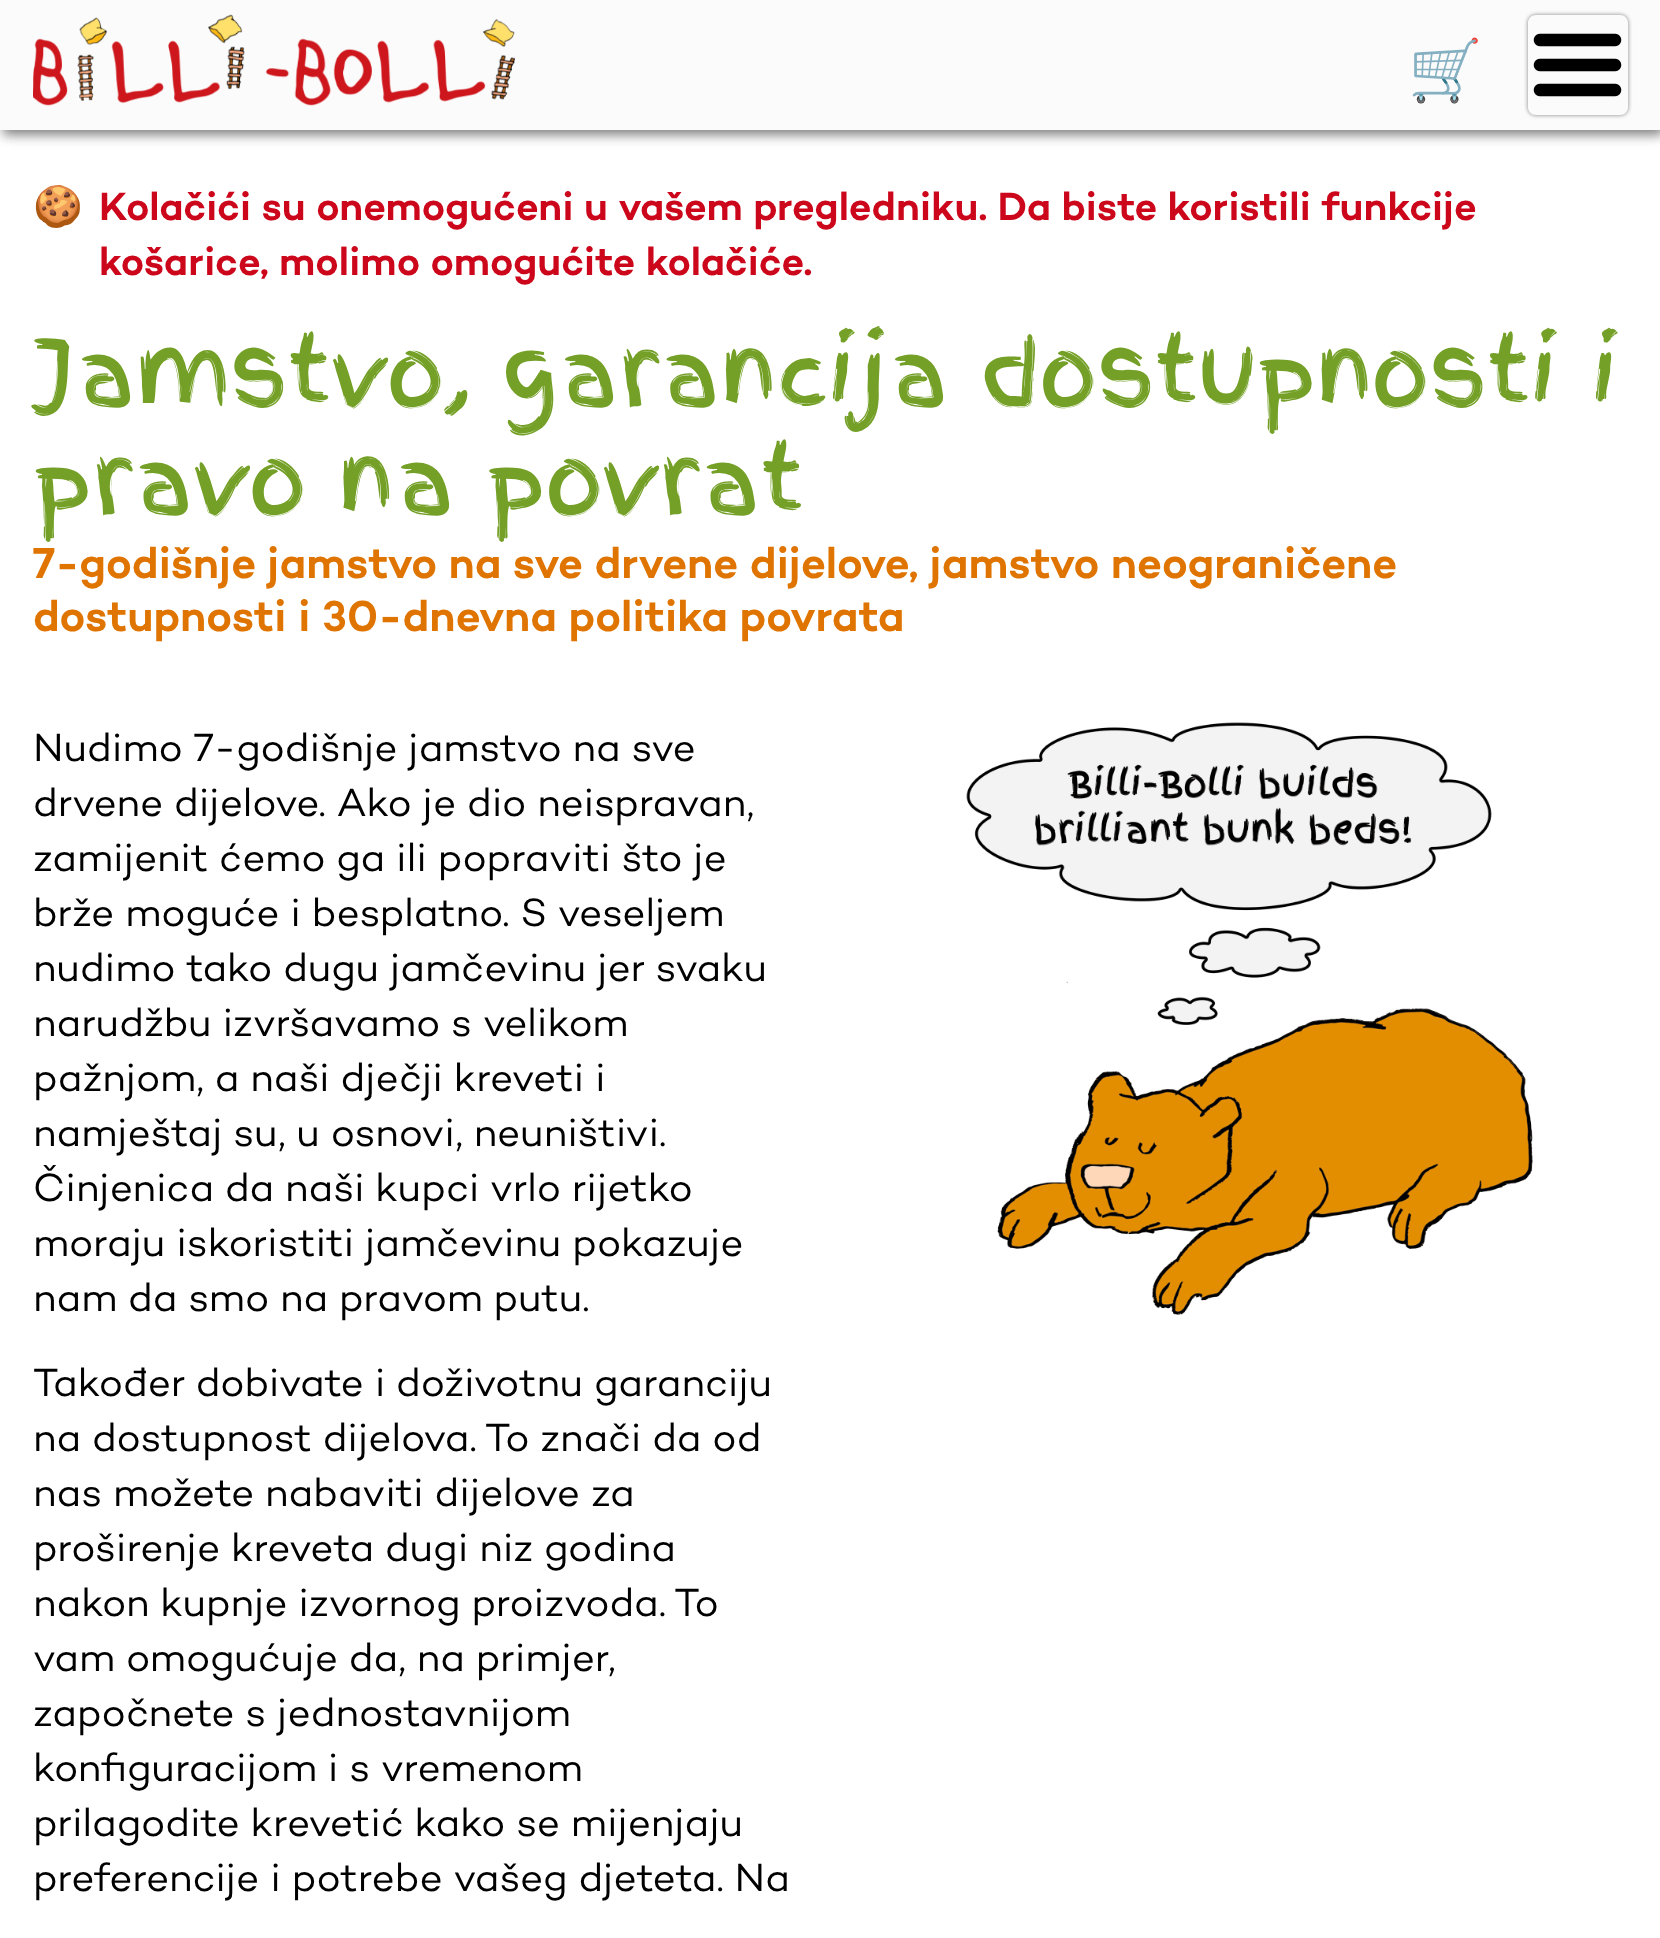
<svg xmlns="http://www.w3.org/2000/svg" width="1660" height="1938">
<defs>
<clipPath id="clip1"><path d="M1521 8h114v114h-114zm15 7h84c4.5 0 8 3.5 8 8v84c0 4.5-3.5 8-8 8h-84c-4.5 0-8-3.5-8-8v-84c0-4.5 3.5-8 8-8z" clip-rule="evenodd"/></clipPath>
</defs>
<rect width="100%" height="100%" fill="#fff"/>
<rect x="3" y="5" width="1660" height="130" fill="#808080" filter="blur(6px)"/>
<rect width="1660" height="130" fill="#fbfbfb"/>
<image x="33" y="14" width="482" height="92" href="media/1.png"/>
<g clip-path="url(#clip1)">
<rect x="1528" y="15" width="100" height="100" rx="8" fill="#808080" filter="blur(2px)"/>
</g>
<text x="1408" y="91" style="font-family:Noto Color Emoji;font-size:60px;font-weight:bold;fill:#e07400">🛒</text>
<image x="1533" y="33" width="89" height="64" href="media/2.png"/>
<text x="33" y="220" style="font-family:Noto Color Emoji;font-size:40px;fill:#cd071b">🍪</text>
<text x="99" y="220" style="font-family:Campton;font-size:40px;fill:#cd071b">Kolačići su onemogućeni u vašem pregledniku. Da biste koristili funkcije</text>
<text x="99" y="275" style="font-family:Campton;font-size:40px;fill:#cd071b">košarice, molimo omogućite kolačiće.</text>
<text x="33" y="405" style="font-family:Finger Paint;font-size:90px;fill:#74a027">Jamstvo, garancija dostupnosti i</text>
<text x="33" y="513" style="font-family:Finger Paint;font-size:90px;fill:#74a027">pravo na povrat</text>
<text x="33" y="578" style="font-family:Campton;font-size:44px;fill:#e07400">7-godišnje jamstvo na sve drvene dijelove, jamstvo neograničene</text>
<text x="33" y="631" style="font-family:Campton;font-size:44px;fill:#e07400">dostupnosti i 30-dnevna politika povrata</text>
<text x="33" y="761" style="font-family:'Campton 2';font-size:40px;fill:#000">Nudimo 7-godišnje jamstvo na sve</text>
<text x="33" y="816" style="font-family:'Campton 2';font-size:40px;fill:#000">drvene dijelove. Ako je dio neispravan,</text>
<text x="33" y="871" style="font-family:'Campton 2';font-size:40px;fill:#000">zamijenit ćemo ga ili popraviti što je</text>
<text x="33" y="926" style="font-family:'Campton 2';font-size:40px;fill:#000">brže moguće i besplatno. S veseljem</text>
<text x="33" y="981" style="font-family:'Campton 2';font-size:40px;fill:#000">nudimo tako dugu jamčevinu jer svaku</text>
<text x="33" y="1036" style="font-family:'Campton 2';font-size:40px;fill:#000">narudžbu izvršavamo s velikom</text>
<text x="33" y="1091" style="font-family:'Campton 2';font-size:40px;fill:#000">pažnjom, a naši dječji kreveti i</text>
<text x="33" y="1146" style="font-family:'Campton 2';font-size:40px;fill:#000">namještaj su, u osnovi, neuništivi.</text>
<text x="33" y="1201" style="font-family:'Campton 2';font-size:40px;fill:#000">Činjenica da naši kupci vrlo rijetko</text>
<text x="33" y="1256" style="font-family:'Campton 2';font-size:40px;fill:#000">moraju iskoristiti jamčevinu pokazuje</text>
<text x="33" y="1311" style="font-family:'Campton 2';font-size:40px;fill:#000">nam da smo na pravom putu.</text>
<text x="33" y="1396" style="font-family:'Campton 2';font-size:40px;fill:#000">Također dobivate i doživotnu garanciju</text>
<text x="33" y="1451" style="font-family:'Campton 2';font-size:40px;fill:#000">na dostupnost dijelova. To znači da od</text>
<text x="33" y="1506" style="font-family:'Campton 2';font-size:40px;fill:#000">nas možete nabaviti dijelove za</text>
<text x="33" y="1561" style="font-family:'Campton 2';font-size:40px;fill:#000">proširenje kreveta dugi niz godina</text>
<text x="33" y="1616" style="font-family:'Campton 2';font-size:40px;fill:#000">nakon kupnje izvornog proizvoda. To</text>
<text x="33" y="1671" style="font-family:'Campton 2';font-size:40px;fill:#000">vam omogućuje da, na primjer,</text>
<text x="33" y="1726" style="font-family:'Campton 2';font-size:40px;fill:#000">započnete s jednostavnijom</text>
<text x="33" y="1781" style="font-family:'Campton 2';font-size:40px;fill:#000">konfiguracijom i s vremenom</text>
<text x="33" y="1836" style="font-family:'Campton 2';font-size:40px;fill:#000">prilagodite krevetić kako se mijenjaju</text>
<text x="33" y="1891" style="font-family:'Campton 2';font-size:40px;fill:#000">preferencije i potrebe vašeg djeteta. Na</text>
<image x="966" y="722" width="567" height="593" href="media/3.png"/>
</svg>
